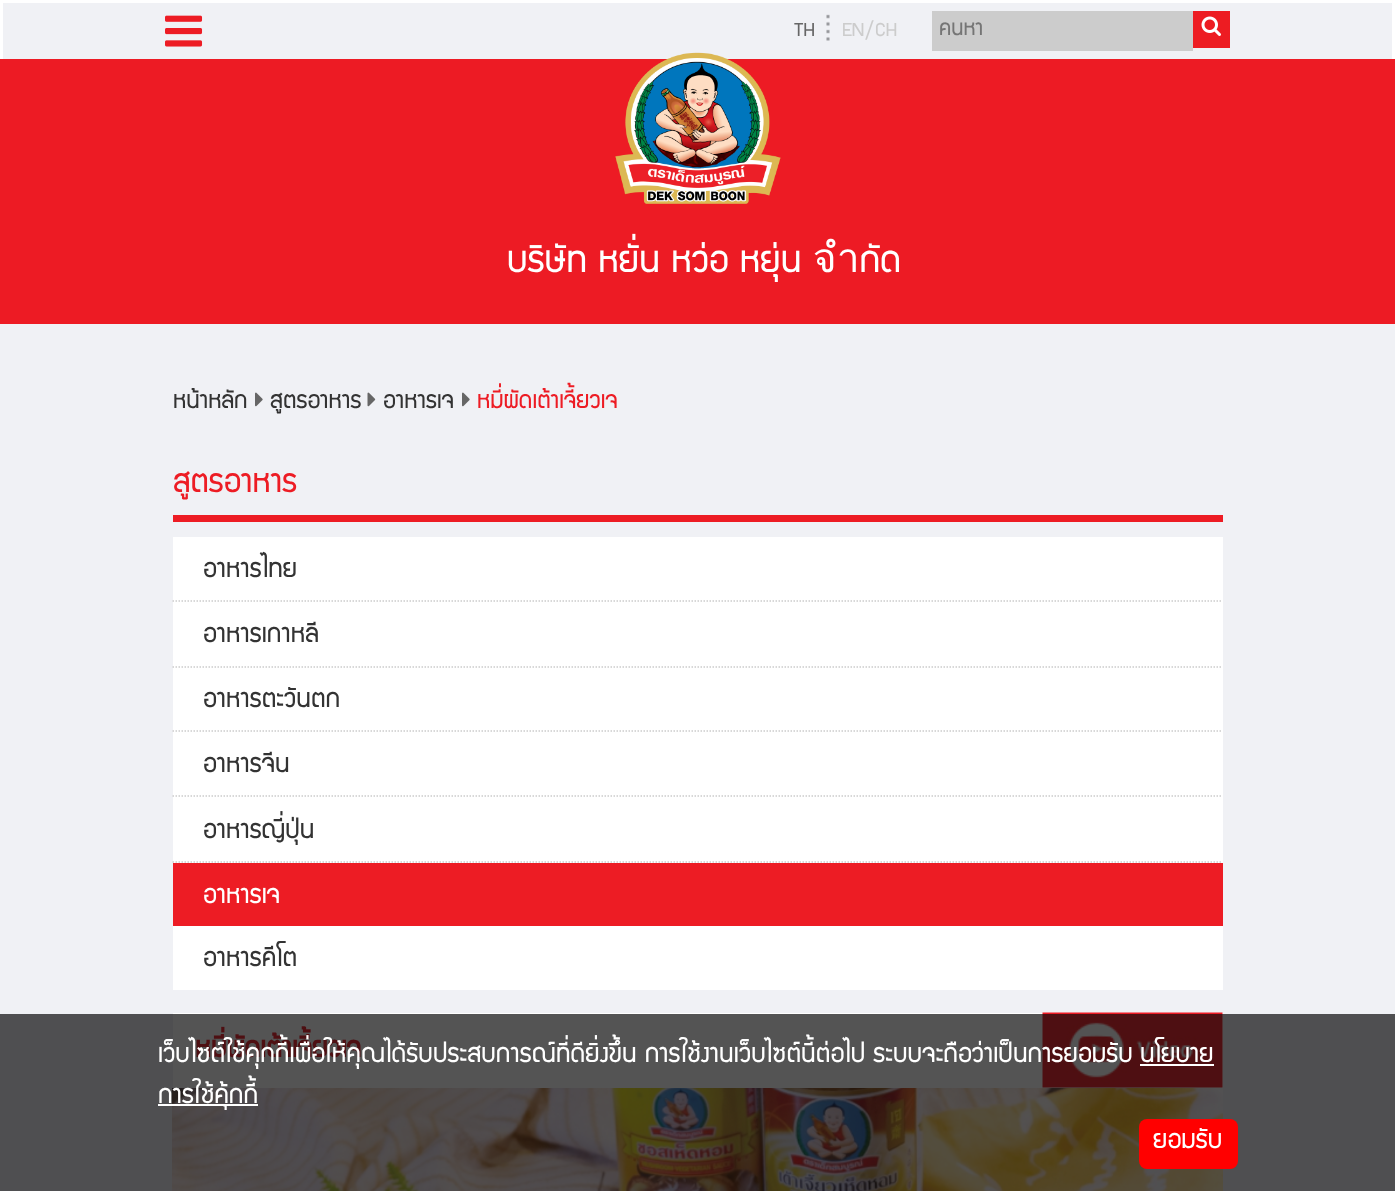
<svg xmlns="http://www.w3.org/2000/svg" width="1395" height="1191">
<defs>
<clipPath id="clip1"><rect x="939" y="21" width="246" height="21"/></clipPath>
</defs>
<rect width="100%" height="100%" fill="#f0f1f5"/>
<rect y="1014" width="1395" height="177" fill="#4f4f51"/>
<rect width="1395" height="3" fill="#fff"/>
<rect x="1392" width="3" height="59" fill="#fff"/>
<rect width="3" height="59" fill="#fff"/>
<image x="165" y="15" width="38" height="32" href="media/1.png"/>
<text x="794" y="36" style="font-family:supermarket;font-size:21.5px;fill:#666">TH</text>
<image x="826" y="14" width="4" height="27" href="media/2.png"/>
<text x="842" y="36" style="font-family:supermarket;font-size:21.5px;fill:#ccc">EN/CH</text>
<rect x="932" y="11" width="261" height="40" fill="#ccc"/>
<g clip-path="url(#clip1)">
<text x="939" y="35" style="font-family:supermarket;font-size:24px;fill:#757575">ค้นหา</text>
</g>
<rect x="1193" y="11" width="37" height="37" fill="#ed1c22"/>
<image x="1201" y="16" width="20" height="20" href="media/3.png"/>
<rect y="59" width="1395" height="265" fill="#ed1b24"/>
<image x="615" y="52" width="166" height="152" href="media/4.png"/>
<text x="507" y="272" style="font-family:supermarket;font-size:40.75px;fill:#fff">บริษัท หยั่น หว่อ หยุ่น จำกัด</text>
<text x="173" y="408" style="font-family:supermarket;font-size:26.5px;fill:#333">หน้าหลัก</text>
<image x="255" y="392" width="8" height="15" href="media/5.png"/>
<text x="270" y="408" style="font-family:supermarket;font-size:26.5px;fill:#333">สูตรอาหาร</text>
<image x="367" y="392" width="9" height="15" href="media/6.png"/>
<text x="383" y="408" style="font-family:supermarket;font-size:26.5px;fill:#333">อาหารเจ</text>
<image x="462" y="392" width="8" height="15" href="media/5.png"/>
<text x="477" y="408" style="font-family:supermarket;font-size:26.5px;fill:#ed1c24">หมี่ผัดเต้าเจี้ยวเจ</text>
<rect x="173" y="515" width="1050" height="7" fill="#ed1c24"/>
<text x="173" y="492" style="font-family:supermarket;font-size:36px;fill:#ed1c24">สูตรอาหาร</text>
<rect x="173" y="537" width="1050" height="326" fill="#fff"/>
<path d="M172.5 601h1050" fill="none" stroke="#ccc" stroke-width="1.5" stroke-dasharray="1.5 1.5"/>
<text x="203" y="577" style="font-family:supermarket;font-size:28.8px;fill:#333">อาหารไทย</text>
<path d="M172.5 667h1050" fill="none" stroke="#ccc" stroke-width="1.5" stroke-dasharray="1.5 1.5"/>
<text x="203" y="642" style="font-family:supermarket;font-size:28.8px;fill:#333">อาหารเกาหลี</text>
<path d="M172.5 731h1050" fill="none" stroke="#ccc" stroke-width="1.5" stroke-dasharray="1.5 1.5"/>
<text x="203" y="707" style="font-family:supermarket;font-size:28.8px;fill:#333">อาหารตะวันตก</text>
<path d="M172.5 796h1050" fill="none" stroke="#ccc" stroke-width="1.5" stroke-dasharray="1.5 1.5"/>
<text x="203" y="772" style="font-family:supermarket;font-size:28.8px;fill:#333">อาหารจีน</text>
<path d="M172.5 862h1050" fill="none" stroke="#ccc" stroke-width="1.5" stroke-dasharray="1.5 1.5"/>
<text x="203" y="838" style="font-family:supermarket;font-size:28.8px;fill:#333">อาหารญี่ปุ่น</text>
<rect x="173" y="863" width="1050" height="63" fill="#ed1c24"/>
<text x="203" y="903" style="font-family:supermarket;font-size:28.8px;fill:#fff">อาหารเจ</text>
<rect x="173" y="926" width="1050" height="64" fill="#fff"/>
<text x="203" y="966" style="font-family:supermarket;font-size:28.8px;fill:#333">อาหารคีโต</text>
<rect x="173" y="1013" width="1050" height="1" fill="#fff"/>
<rect x="173" y="1014" width="1050" height="74" fill="#545454"/>
<text x="195" y="1057" style="font-family:supermarket;font-size:31.25px;font-weight:bold;fill:#4e0f12">หมี่ผัดเต้าเจี้ยวเจ</text>
<image x="1042" y="1012" width="181" height="76" href="media/7.png"/>
<image x="172" y="1088" width="1051" height="103" href="media/8.png"/>
<text x="158" y="1062" style="font-family:supermarket;font-size:28.8px;fill:#fff">เว็บไซต์ใช้คุกกี้เพื่อให้คุณได้รับประสบการณ์ที่ดียิ่งขึ้น การใช้งานเว็บไซต์นี้ต่อไป ระบบจะถือว่าเป็นการยอมรับ</text>
<text x="1140" y="1062" style="font-family:supermarket;font-size:28.8px;fill:#fff">นโยบาย</text>
<rect x="1140" y="1064" width="74" height="2" fill="#fff"/>
<rect x="158" y="1104" width="100" height="2" fill="#fff"/>
<text x="158" y="1103" style="font-family:supermarket;font-size:28.8px;fill:#fff">การใช้คุ้กกี้</text>
<rect x="1139" y="1119" width="99" height="50" rx="8" fill="#f00"/>
<text x="1153" y="1148" style="font-family:supermarket;font-size:28.8px;fill:#fff">ยอมรับ</text>
</svg>
